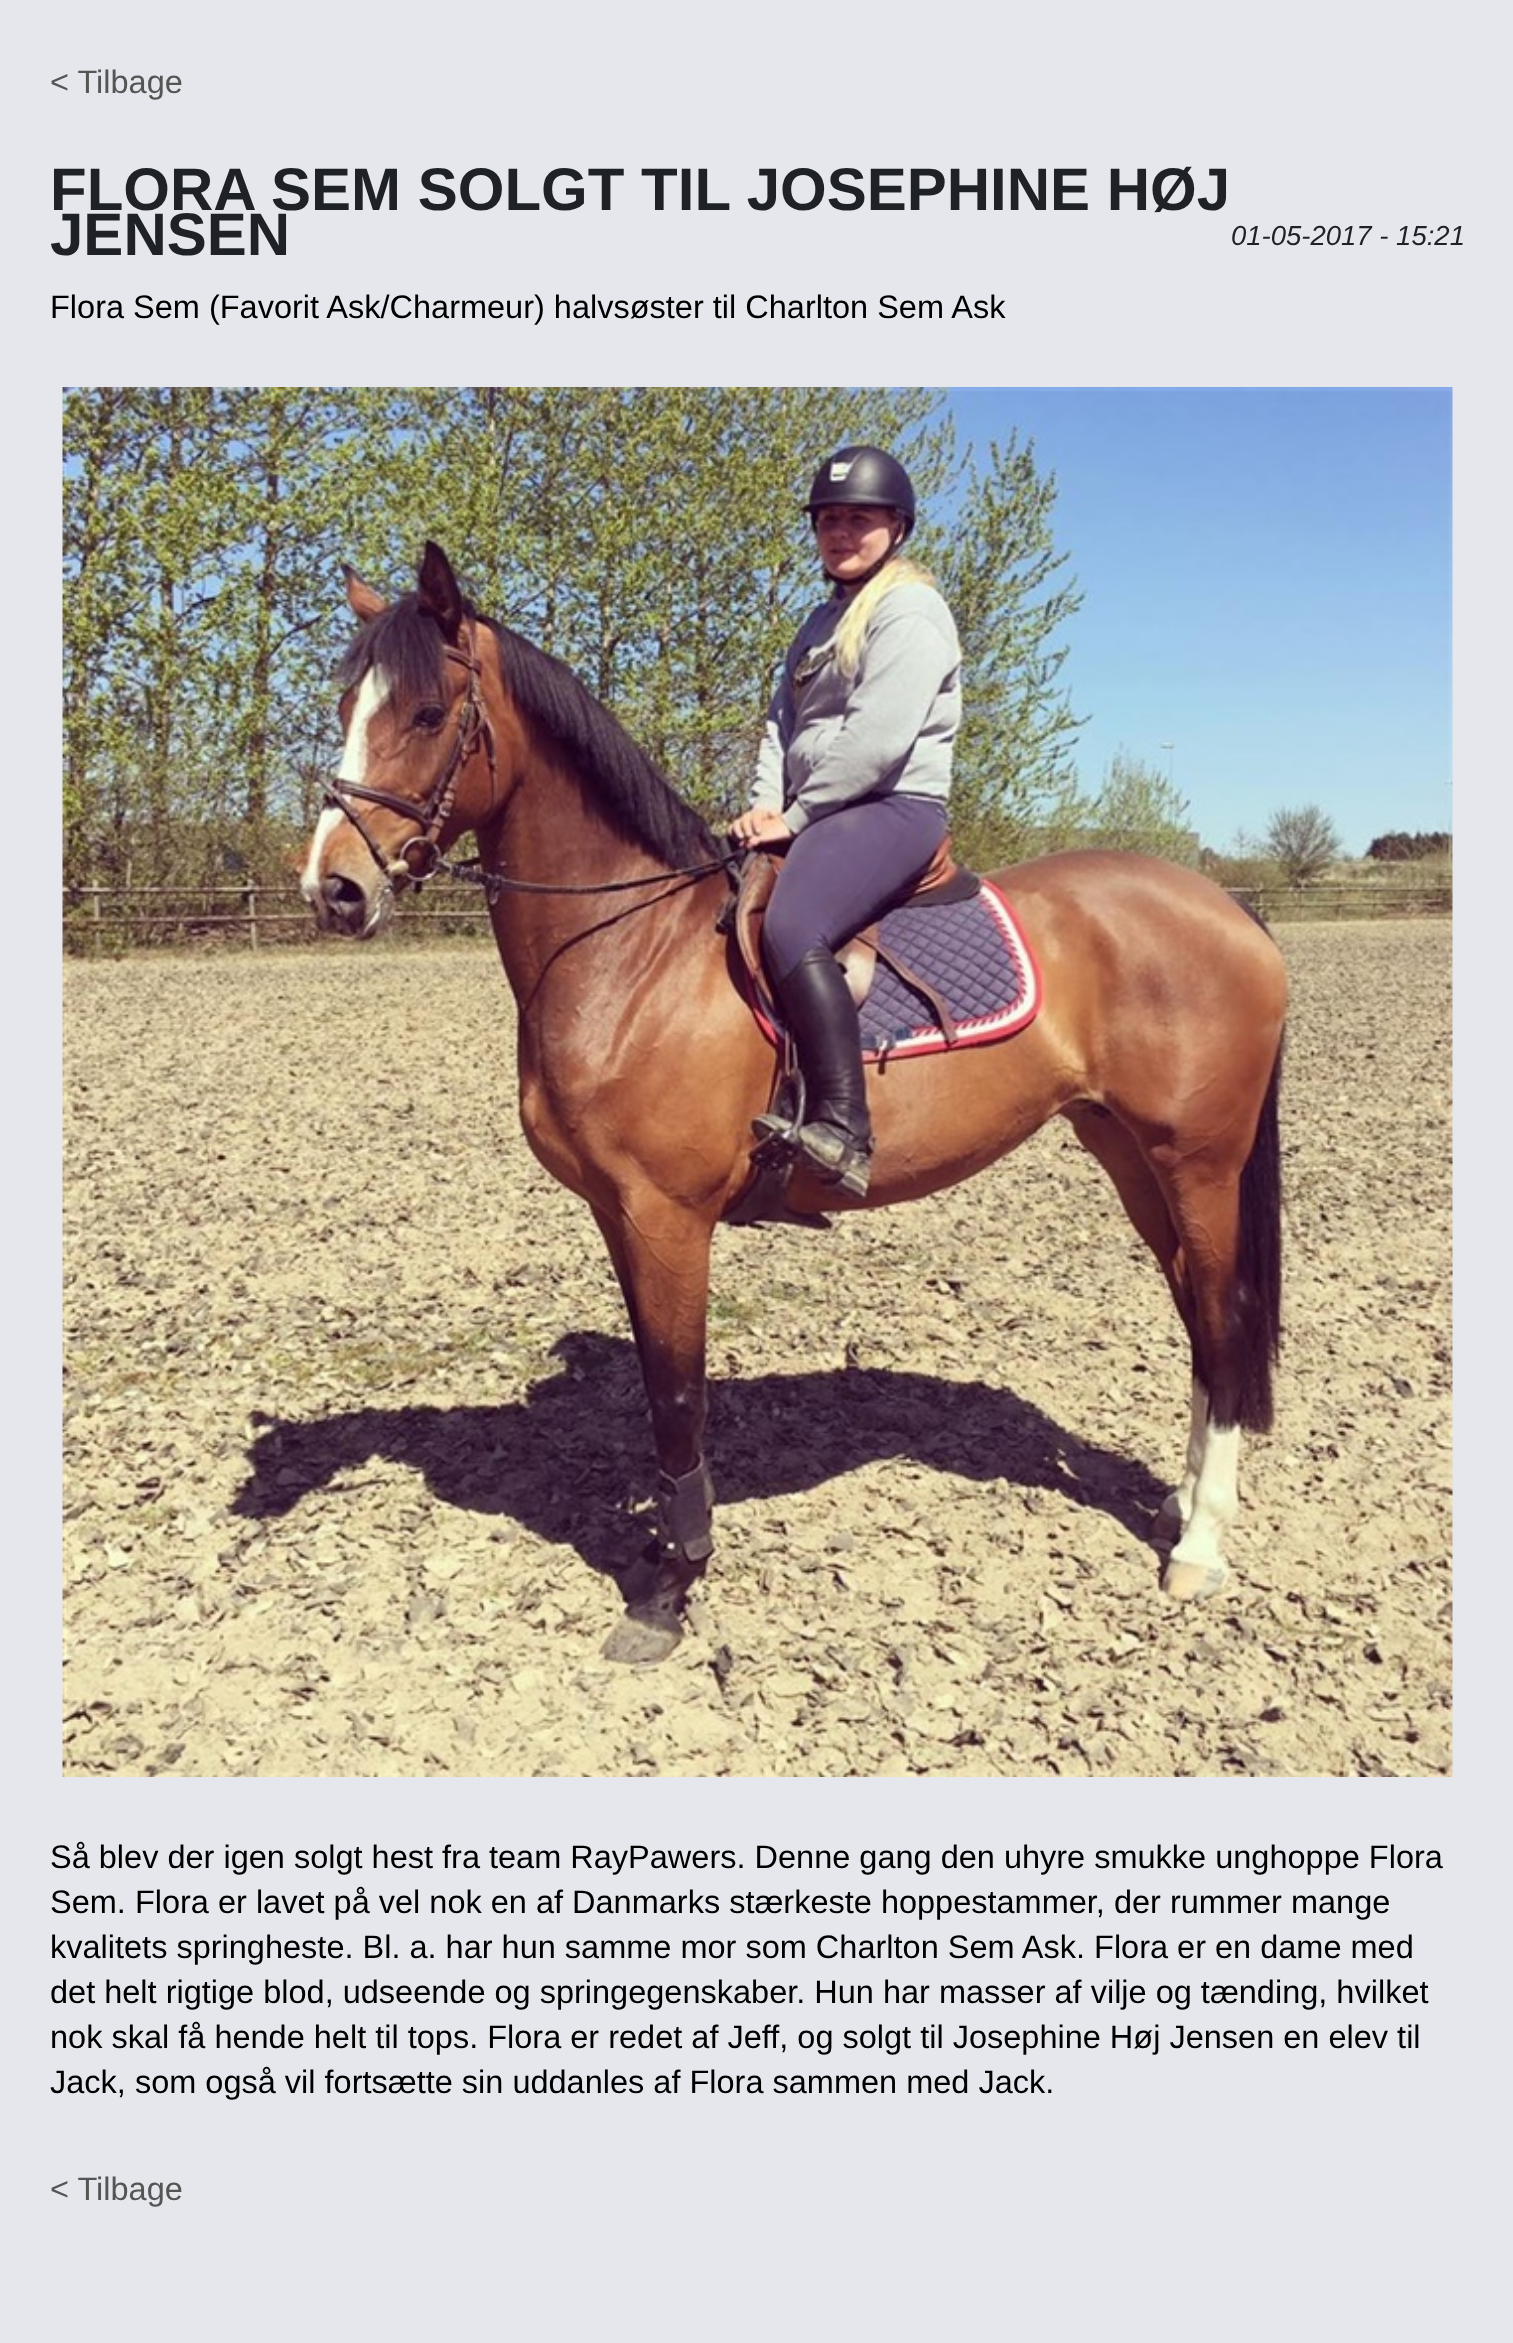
<svg xmlns="http://www.w3.org/2000/svg" width="1513" height="2343">
<rect width="100%" height="100%" fill="#e6e7ec"/>
<text x="50" y="93" style="font-family:Liberation Sans;font-size:32.5px;fill:#555">&lt; Tilbage</text>
<text x="50" y="210" style="font-family:Liberation Sans;font-size:60px;font-weight:bold;fill:#1f2128">FLORA SEM SOLGT TIL JOSEPHINE HØJ</text>
<text x="50" y="255" style="font-family:Liberation Sans;font-size:60px;font-weight:bold;fill:#1f2128">JENSEN</text>
<text x="1231" y="245" style="font-family:Liberation Sans;font-size:27.5px;font-style:italic;fill:#1f2128">01-05-2017 - 15:21</text>
<text x="50" y="318" style="font-family:Liberation Sans;font-size:32.5px;fill:#000">Flora Sem (Favorit Ask/Charmeur) halvsøster til Charlton Sem Ask</text>
<image x="62" y="387" width="1391" height="1390" href="media/1.png"/>
<text x="50" y="1868" style="font-family:Liberation Sans;font-size:32.5px;fill:#000">Så blev der igen solgt hest fra team RayPawers. Denne gang den uhyre smukke unghoppe Flora</text>
<text x="50" y="1913" style="font-family:Liberation Sans;font-size:32.5px;fill:#000">Sem. Flora er lavet på vel nok en af Danmarks stærkeste hoppestammer, der rummer mange</text>
<text x="50" y="1958" style="font-family:Liberation Sans;font-size:32.5px;fill:#000">kvalitets springheste. Bl. a. har hun samme mor som Charlton Sem Ask. Flora er en dame med</text>
<text x="50" y="2003" style="font-family:Liberation Sans;font-size:32.5px;fill:#000">det helt rigtige blod, udseende og springegenskaber. Hun har masser af vilje og tænding, hvilket</text>
<text x="50" y="2048" style="font-family:Liberation Sans;font-size:32.5px;fill:#000">nok skal få hende helt til tops. Flora er redet af Jeff, og solgt til Josephine Høj Jensen en elev til</text>
<text x="50" y="2093" style="font-family:Liberation Sans;font-size:32.5px;fill:#000">Jack, som også vil fortsætte sin uddanles af Flora sammen med Jack.</text>
<text x="50" y="2200" style="font-family:Liberation Sans;font-size:32.5px;fill:#555">&lt; Tilbage</text>
</svg>
